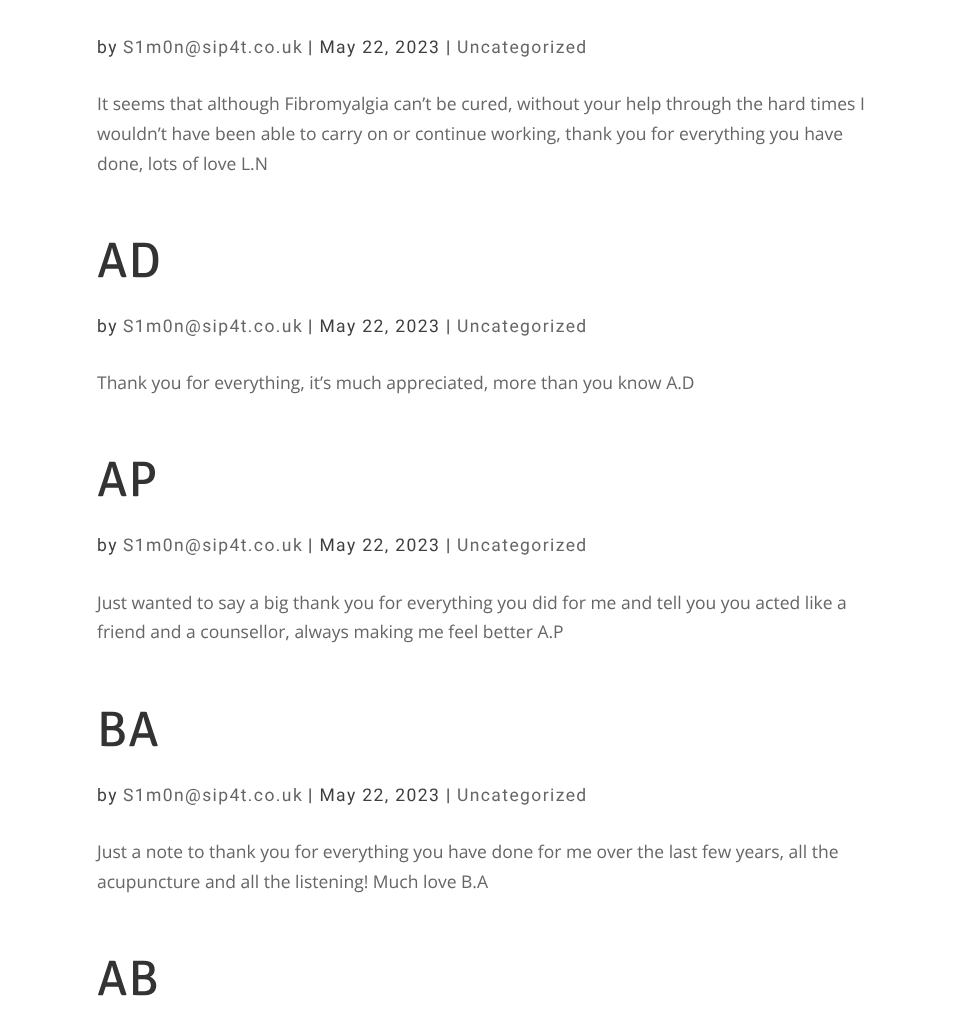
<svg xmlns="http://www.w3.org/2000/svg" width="964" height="1020">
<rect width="100%" height="100%" fill="#fff"/>
<text x="97" y="53" style="font-family:Roboto;font-size:17.5px;letter-spacing:1.4px;fill:#3f3f3f">by</text>
<text x="123" y="53" style="font-family:Roboto;font-size:17.5px;letter-spacing:1.4px;fill:#666">S1m0n@sip4t.co.uk</text>
<text x="308" y="53" style="font-family:Roboto;font-size:17.5px;letter-spacing:1.4px;fill:#3f3f3f">| May 22, 2023 |</text>
<text x="457" y="53" style="font-family:Roboto;font-size:17.5px;letter-spacing:1.4px;fill:#666">Uncategorized</text>
<text x="97" y="110" style="font-family:Open Sans;font-size:17.5px;fill:#666">It seems that although Fibromyalgia can’t be cured, without your help through the hard times I</text>
<text x="97" y="140" style="font-family:Open Sans;font-size:17.5px;fill:#666">wouldn’t have been able to carry on or continue working, thank you for everything you have</text>
<text x="97" y="170" style="font-family:Open Sans;font-size:17.5px;fill:#666">done, lots of love L.N</text>
<text x="97" y="277" style="font-family:Signika;font-size:50px;font-weight:300;letter-spacing:1px;fill:#333">AD</text>
<text x="97" y="332" style="font-family:Roboto;font-size:17.5px;letter-spacing:1.4px;fill:#3f3f3f">by</text>
<text x="123" y="332" style="font-family:Roboto;font-size:17.5px;letter-spacing:1.4px;fill:#666">S1m0n@sip4t.co.uk</text>
<text x="308" y="332" style="font-family:Roboto;font-size:17.5px;letter-spacing:1.4px;fill:#3f3f3f">| May 22, 2023 |</text>
<text x="457" y="332" style="font-family:Roboto;font-size:17.5px;letter-spacing:1.4px;fill:#666">Uncategorized</text>
<text x="97" y="389" style="font-family:Open Sans;font-size:17.5px;fill:#666">Thank you for everything, it’s much appreciated, more than you know A.D</text>
<text x="97" y="496" style="font-family:Signika;font-size:50px;font-weight:300;letter-spacing:1px;fill:#333">AP</text>
<text x="97" y="551" style="font-family:Roboto;font-size:17.5px;letter-spacing:1.4px;fill:#3f3f3f">by</text>
<text x="123" y="551" style="font-family:Roboto;font-size:17.5px;letter-spacing:1.4px;fill:#666">S1m0n@sip4t.co.uk</text>
<text x="308" y="551" style="font-family:Roboto;font-size:17.5px;letter-spacing:1.4px;fill:#3f3f3f">| May 22, 2023 |</text>
<text x="457" y="551" style="font-family:Roboto;font-size:17.5px;letter-spacing:1.4px;fill:#666">Uncategorized</text>
<text x="97" y="609" style="font-family:Open Sans;font-size:17.5px;fill:#666">Just wanted to say a big thank you for everything you did for me and tell you you acted like a</text>
<text x="97" y="638" style="font-family:Open Sans;font-size:17.5px;fill:#666">friend and a counsellor, always making me feel better A.P</text>
<text x="97" y="746" style="font-family:Signika;font-size:50px;font-weight:300;letter-spacing:1px;fill:#333">BA</text>
<text x="97" y="801" style="font-family:Roboto;font-size:17.5px;letter-spacing:1.4px;fill:#3f3f3f">by</text>
<text x="123" y="801" style="font-family:Roboto;font-size:17.5px;letter-spacing:1.4px;fill:#666">S1m0n@sip4t.co.uk</text>
<text x="308" y="801" style="font-family:Roboto;font-size:17.5px;letter-spacing:1.4px;fill:#3f3f3f">| May 22, 2023 |</text>
<text x="457" y="801" style="font-family:Roboto;font-size:17.5px;letter-spacing:1.4px;fill:#666">Uncategorized</text>
<text x="97" y="858" style="font-family:Open Sans;font-size:17.5px;fill:#666">Just a note to thank you for everything you have done for me over the last few years, all the</text>
<text x="97" y="888" style="font-family:Open Sans;font-size:17.5px;fill:#666">acupuncture and all the listening! Much love B.A</text>
<text x="97" y="995" style="font-family:Signika;font-size:50px;font-weight:300;letter-spacing:1px;fill:#333">AB</text>
</svg>
